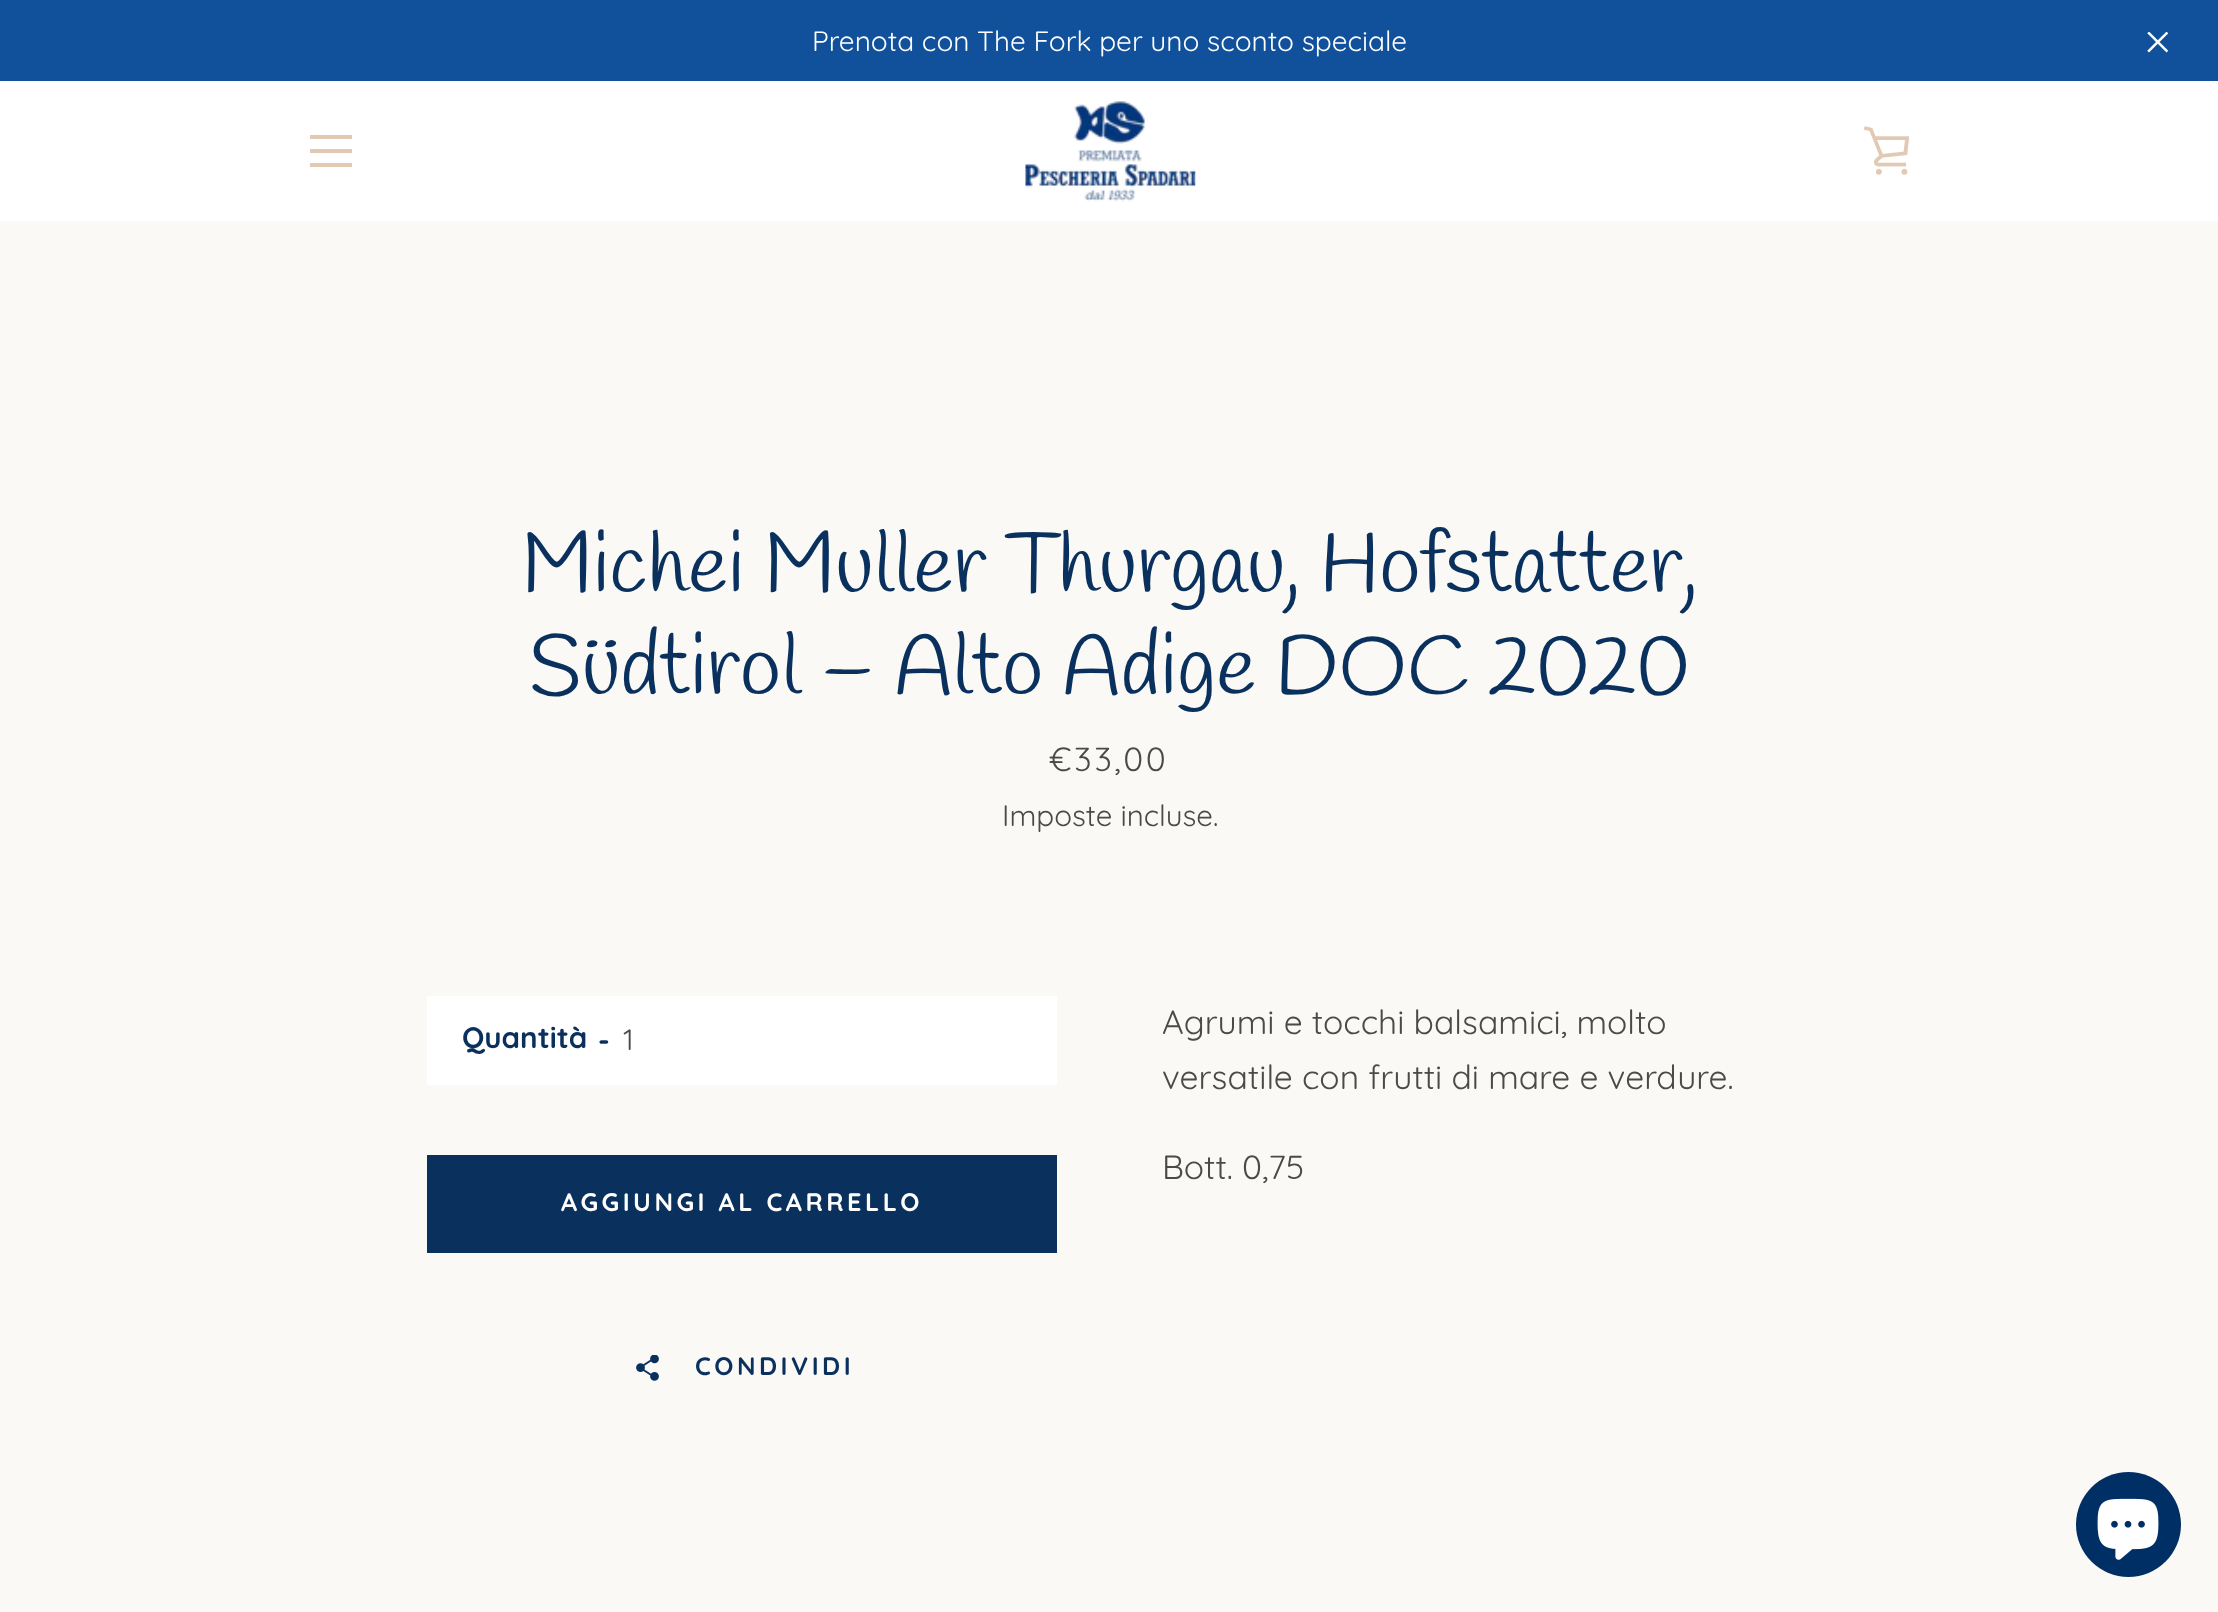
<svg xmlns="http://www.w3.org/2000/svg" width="2218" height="1612">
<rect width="100%" height="100%" fill="#faf9f6"/>
<rect y="81" width="2218" height="140" fill="#fff"/>
<rect width="2218" height="81" fill="#11519b"/>
<text x="812" y="51" style="font-family:Quicksand;font-size:28px;fill:#fff">Prenota con The Fork per uno sconto speciale</text>
<image x="2147" y="32" width="21" height="21" href="media/1.png"/>
<rect x="310" y="135" width="42" height="4" fill="#e1c9b4"/>
<rect x="310" y="149" width="42" height="4" fill="#e1c9b4"/>
<rect x="310" y="163" width="42" height="4" fill="#e1c9b4"/>
<image x="1025" y="101" width="171" height="101" href="media/2.png"/>
<image x="1864" y="126" width="45" height="49" href="media/3.png"/>
<text x="521" y="592" style="font-family:Handlee;font-size:84px;fill:#0a315e">Michei Muller Thurgau, Hofstatter,</text>
<text x="529" y="694" style="font-family:Handlee;font-size:84px;fill:#0a315e">Südtirol – Alto Adige DOC 2020</text>
<text x="1049" y="771" style="font-family:Quicksand;font-size:33.6px;letter-spacing:2.5px;fill:#4a4a4a">€33,00</text>
<text x="1002" y="826" style="font-family:Quicksand;font-size:29.5px;fill:#4a4a4a">Imposte incluse.</text>
<rect x="427" y="996" width="630" height="89" fill="#fff"/>
<text x="462" y="1048" style="font-family:Quicksand;font-size:29.5px;font-weight:bold;fill:#0a315e">Quantità</text>
<text x="598" y="1051" style="font-family:Quicksand;font-size:29.5px;font-weight:bold;fill:#0a315e">-</text>
<text x="623" y="1050" style="font-family:Quicksand;font-size:29.5px;fill:#4a4a4a">1</text>
<rect x="427" y="1155" width="630" height="98" fill="#0a315e"/>
<text x="561" y="1211" style="font-family:Quicksand;font-size:25.25px;font-weight:bold;letter-spacing:3.5px;fill:#fff">AGGIUNGI AL CARRELLO</text>
<image x="636" y="1355" width="23" height="26" href="media/4.png"/>
<text x="695" y="1375" style="font-family:Quicksand;font-size:25.25px;font-weight:bold;letter-spacing:3.5px;fill:#0a315e">CONDIVIDI</text>
<text x="1162" y="1034" style="font-family:Quicksand;font-size:33.6px;fill:#4a4a4a">Agrumi e tocchi balsamici, molto</text>
<text x="1162" y="1089" style="font-family:Quicksand;font-size:33.6px;fill:#4a4a4a">versatile con frutti di mare e verdure.</text>
<text x="1162" y="1179" style="font-family:Quicksand;font-size:33.6px;fill:#4a4a4a">Bott. 0,75</text>
<circle cx="2128.5" cy="1524.5" r="52.5" fill="#002f66"/>
<image x="2097" y="1498" width="62" height="62" href="media/5.png"/>
</svg>
